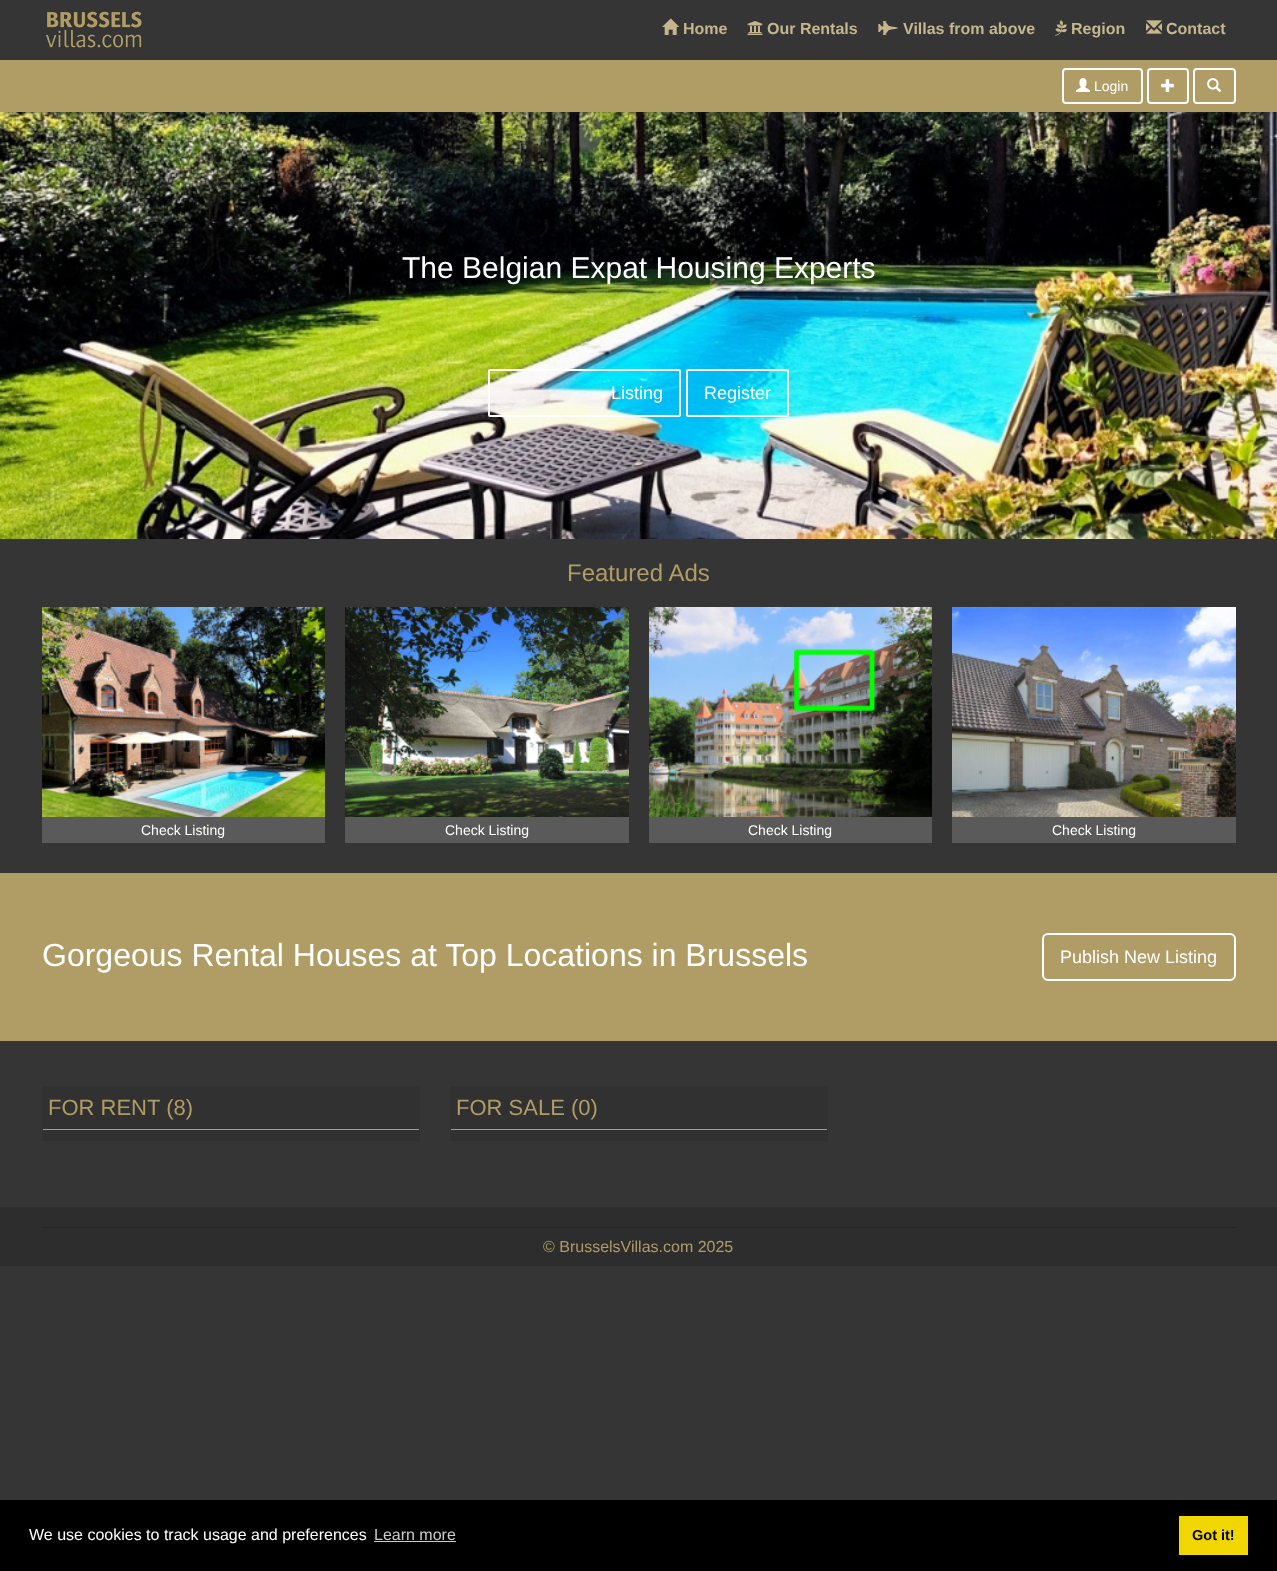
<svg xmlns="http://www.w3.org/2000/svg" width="1277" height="1571">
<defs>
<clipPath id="clip1"><rect x="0" y="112" width="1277" height="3"/></clipPath>
</defs>
<rect width="100%" height="100%" fill="#353535"/>
<image x="0" y="112" width="1277" height="427" href="media/10.png"/>
<g clip-path="url(#clip1)">
<rect width="1277" height="112" fill="#31313180" filter="blur(2px)"/>
</g>
<image x="46" y="11" width="96" height="37" href="media/1.png"/>
<image x="662" y="18" width="18" height="17" href="media/2.png"/>
<text x="683" y="34" style="font-family:Liberation Sans;font-size:16px;font-weight:bold;fill:#c5b68d">Home</text>
<image x="747" y="21" width="16" height="14" href="media/3.png"/>
<text x="767" y="34" style="font-family:Liberation Sans;font-size:16px;font-weight:bold;fill:#c5b68d">Our Rentals</text>
<image x="878" y="21" width="20" height="14" href="media/4.png"/>
<text x="903" y="34" style="font-family:Liberation Sans;font-size:16px;font-weight:bold;fill:#c5b68d">Villas from above</text>
<image x="1055" y="20" width="12" height="16" href="media/5.png"/>
<text x="1071" y="34" style="font-family:Liberation Sans;font-size:16px;font-weight:bold;fill:#c5b68d">Region</text>
<image x="1146" y="20" width="16" height="14" href="media/6.png"/>
<text x="1166" y="34" style="font-family:Liberation Sans;font-size:16px;font-weight:bold;fill:#c5b68d">Contact</text>
<rect y="60" width="1277" height="52" fill="#b09c65"/>
<rect x="1063" y="69" width="79" height="34" rx="3" fill="none" stroke="#fff" stroke-width="2"/>
<image x="1076" y="78" width="14" height="14" href="media/7.png"/>
<text x="1094" y="91" style="font-family:Liberation Sans;font-size:14px;fill:#fff">Login</text>
<rect x="1148" y="69" width="40" height="34" rx="3" fill="none" stroke="#fff" stroke-width="2"/>
<image x="1161" y="79" width="13" height="13" href="media/8.png"/>
<rect x="1194" y="69" width="41" height="34" rx="3" fill="none" stroke="#fff" stroke-width="2"/>
<image x="1207" y="78" width="15" height="14" href="media/9.png"/>
<text x="402" y="278" style="font-family:Liberation Sans;font-size:30px;fill:#fff">The Belgian Expat Housing Experts</text>
<rect x="489" y="370" width="191" height="46" rx="1" fill="none" stroke="#fff" stroke-width="2"/>
<text x="611" y="399" style="font-family:Liberation Sans;font-size:18px;fill:#fff">Listing</text>
<rect x="687" y="370" width="101" height="46" rx="1" fill="none" stroke="#fff" stroke-width="2"/>
<text x="704" y="399" style="font-family:Liberation Sans;font-size:18px;fill:#fff">Register</text>
<text x="567" y="581" style="font-family:Liberation Sans;font-size:24px;fill:#b09c65">Featured Ads</text>
<image x="42" y="607" width="283" height="210" href="media/11.png"/>
<rect x="42" y="817" width="283" height="26" fill="#5a5a5a"/>
<text x="141" y="835" style="font-family:Liberation Sans;font-size:14px;fill:#fff">Check Listing</text>
<image x="345" y="607" width="284" height="210" href="media/12.png"/>
<rect x="345" y="817" width="284" height="26" fill="#5a5a5a"/>
<text x="445" y="835" style="font-family:Liberation Sans;font-size:14px;fill:#fff">Check Listing</text>
<image x="649" y="607" width="283" height="210" href="media/13.png"/>
<rect x="649" y="817" width="283" height="26" fill="#5a5a5a"/>
<text x="748" y="835" style="font-family:Liberation Sans;font-size:14px;fill:#fff">Check Listing</text>
<image x="952" y="607" width="284" height="210" href="media/14.png"/>
<rect x="952" y="817" width="284" height="26" fill="#5a5a5a"/>
<text x="1052" y="835" style="font-family:Liberation Sans;font-size:14px;fill:#fff">Check Listing</text>
<rect y="873" width="1277" height="168" fill="#b09c65"/>
<text x="42" y="966" style="font-family:Liberation Sans;font-size:32px;fill:#fff">Gorgeous Rental Houses at Top Locations in Brussels</text>
<rect x="1043" y="934" width="192" height="46" rx="5" fill="none" stroke="#fff" stroke-width="2"/>
<text x="1060" y="963" style="font-family:Liberation Sans;font-size:18px;fill:#fff">Publish New Listing</text>
<rect x="42" y="1086" width="378" height="55" fill="#313131"/>
<rect x="43" y="1129" width="376" height="1" fill="#b09c65"/>
<text x="48" y="1115" style="font-family:Liberation Sans;font-size:22px;fill:#b09c65">FOR RENT (8)</text>
<rect x="450" y="1086" width="378" height="55" fill="#313131"/>
<rect x="451" y="1129" width="376" height="1" fill="#b09c65"/>
<text x="456" y="1115" style="font-family:Liberation Sans;font-size:22px;fill:#b09c65">FOR SALE (0)</text>
<rect y="1207" width="1277" height="59" fill="#2d2d2d"/>
<rect x="42" y="1227" width="1194" height="1" fill="#252525"/>
<text x="543" y="1252" style="font-family:Liberation Sans;font-size:16px;fill:#b09c65">© BrusselsVillas.com 2025</text>
<rect y="1500" width="1277" height="71" fill="#000"/>
<text x="29" y="1540" style="font-family:Liberation Sans;font-size:16px;fill:#fff">We use cookies to track usage and preferences</text>
<text x="374" y="1540" style="font-family:Liberation Sans;font-size:16px;fill:#ccc">Learn more</text>
<rect x="374" y="1541" width="82" height="1" fill="#ccc"/>
<rect x="1179" y="1516" width="69" height="39" fill="#f1d600"/>
<text x="1192" y="1540" style="font-family:Liberation Sans;font-size:14.5px;font-weight:bold;fill:#000">Got it!</text>
</svg>
